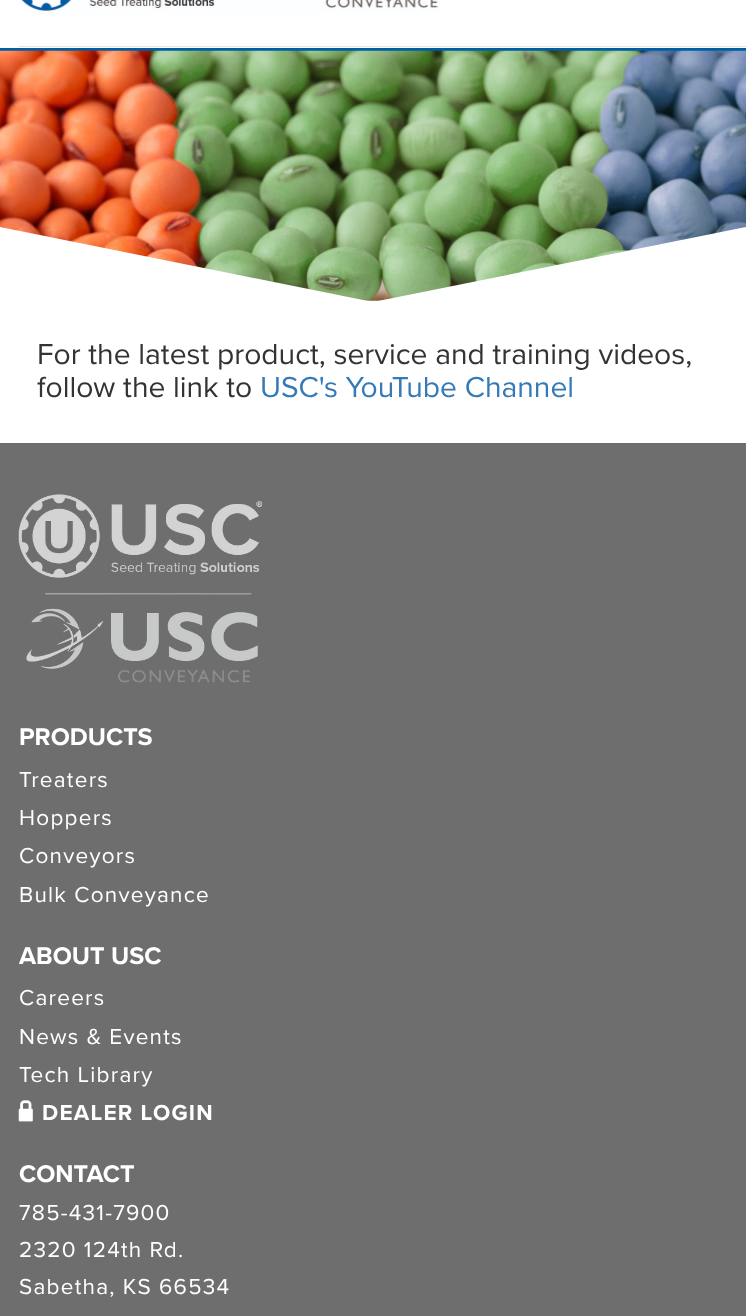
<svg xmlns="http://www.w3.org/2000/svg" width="746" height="1316">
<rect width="100%" height="100%" fill="#fff"/>
<rect y="48" width="746" height="3" fill="#005ea5"/>
<image x="20" y="0" width="420" height="14" href="media/1.png"/>
<rect x="19" y="46" width="727" height="1" fill="#e7e7e7"/>
<image x="0" y="50" width="746" height="251" href="media/2.png"/>
<path d="M373 302h373v-75z" fill="#fff"/>
<path d="M0 227v75h373z" fill="#fff"/>
<text x="37" y="364" style="font-family:Proxima Nova;font-size:30px;fill:#333">For the latest product, service and training videos,</text>
<text x="37" y="397" style="font-family:Proxima Nova;font-size:30px;fill:#333">follow the link to</text>
<text x="260" y="397" style="font-family:Proxima Nova;font-size:30px;fill:#337ab7">USC's YouTube Channel</text>
<rect y="443" width="746" height="873" fill="#6e6e6e"/>
<image x="18" y="494" width="245" height="189" href="media/3.png"/>
<text x="19" y="745" style="font-family:Proxima Nova;font-size:25px;font-weight:bold;fill:#fff">PRODUCTS</text>
<text x="19" y="787" style="font-family:Proxima Nova;font-size:22.5px;letter-spacing:1.25px;fill:#fff">Treaters</text>
<text x="19" y="825" style="font-family:Proxima Nova;font-size:22.5px;letter-spacing:1.25px;fill:#fff">Hoppers</text>
<text x="19" y="863" style="font-family:Proxima Nova;font-size:22.5px;letter-spacing:1.25px;fill:#fff">Conveyors</text>
<text x="19" y="902" style="font-family:Proxima Nova;font-size:22.5px;letter-spacing:1.25px;fill:#fff">Bulk Conveyance</text>
<text x="19" y="964" style="font-family:Proxima Nova;font-size:25px;font-weight:bold;fill:#fff">ABOUT USC</text>
<text x="19" y="1005" style="font-family:Proxima Nova;font-size:22.5px;letter-spacing:1.25px;fill:#fff">Careers</text>
<text x="19" y="1044" style="font-family:Proxima Nova;font-size:22.5px;letter-spacing:1.25px;fill:#fff">News &amp; Events</text>
<text x="19" y="1082" style="font-family:Proxima Nova;font-size:22.5px;letter-spacing:1.25px;fill:#fff">Tech Library</text>
<image x="18" y="1100" width="15" height="22" href="media/4.png"/>
<text x="42" y="1120" style="font-family:Proxima Nova;font-size:22.5px;font-weight:bold;letter-spacing:1.25px;fill:#fff">DEALER LOGIN</text>
<text x="19" y="1182" style="font-family:Proxima Nova;font-size:25px;font-weight:bold;fill:#fff">CONTACT</text>
<text x="19" y="1220" style="font-family:Proxima Nova;font-size:22.5px;letter-spacing:1.25px;fill:#fff">785-431-7900</text>
<text x="19" y="1257" style="font-family:Proxima Nova;font-size:22.5px;letter-spacing:1.25px;fill:#fff">2320 124th Rd.</text>
<text x="19" y="1294" style="font-family:Proxima Nova;font-size:22.5px;letter-spacing:1.25px;fill:#fff">Sabetha, KS 66534</text>
</svg>
